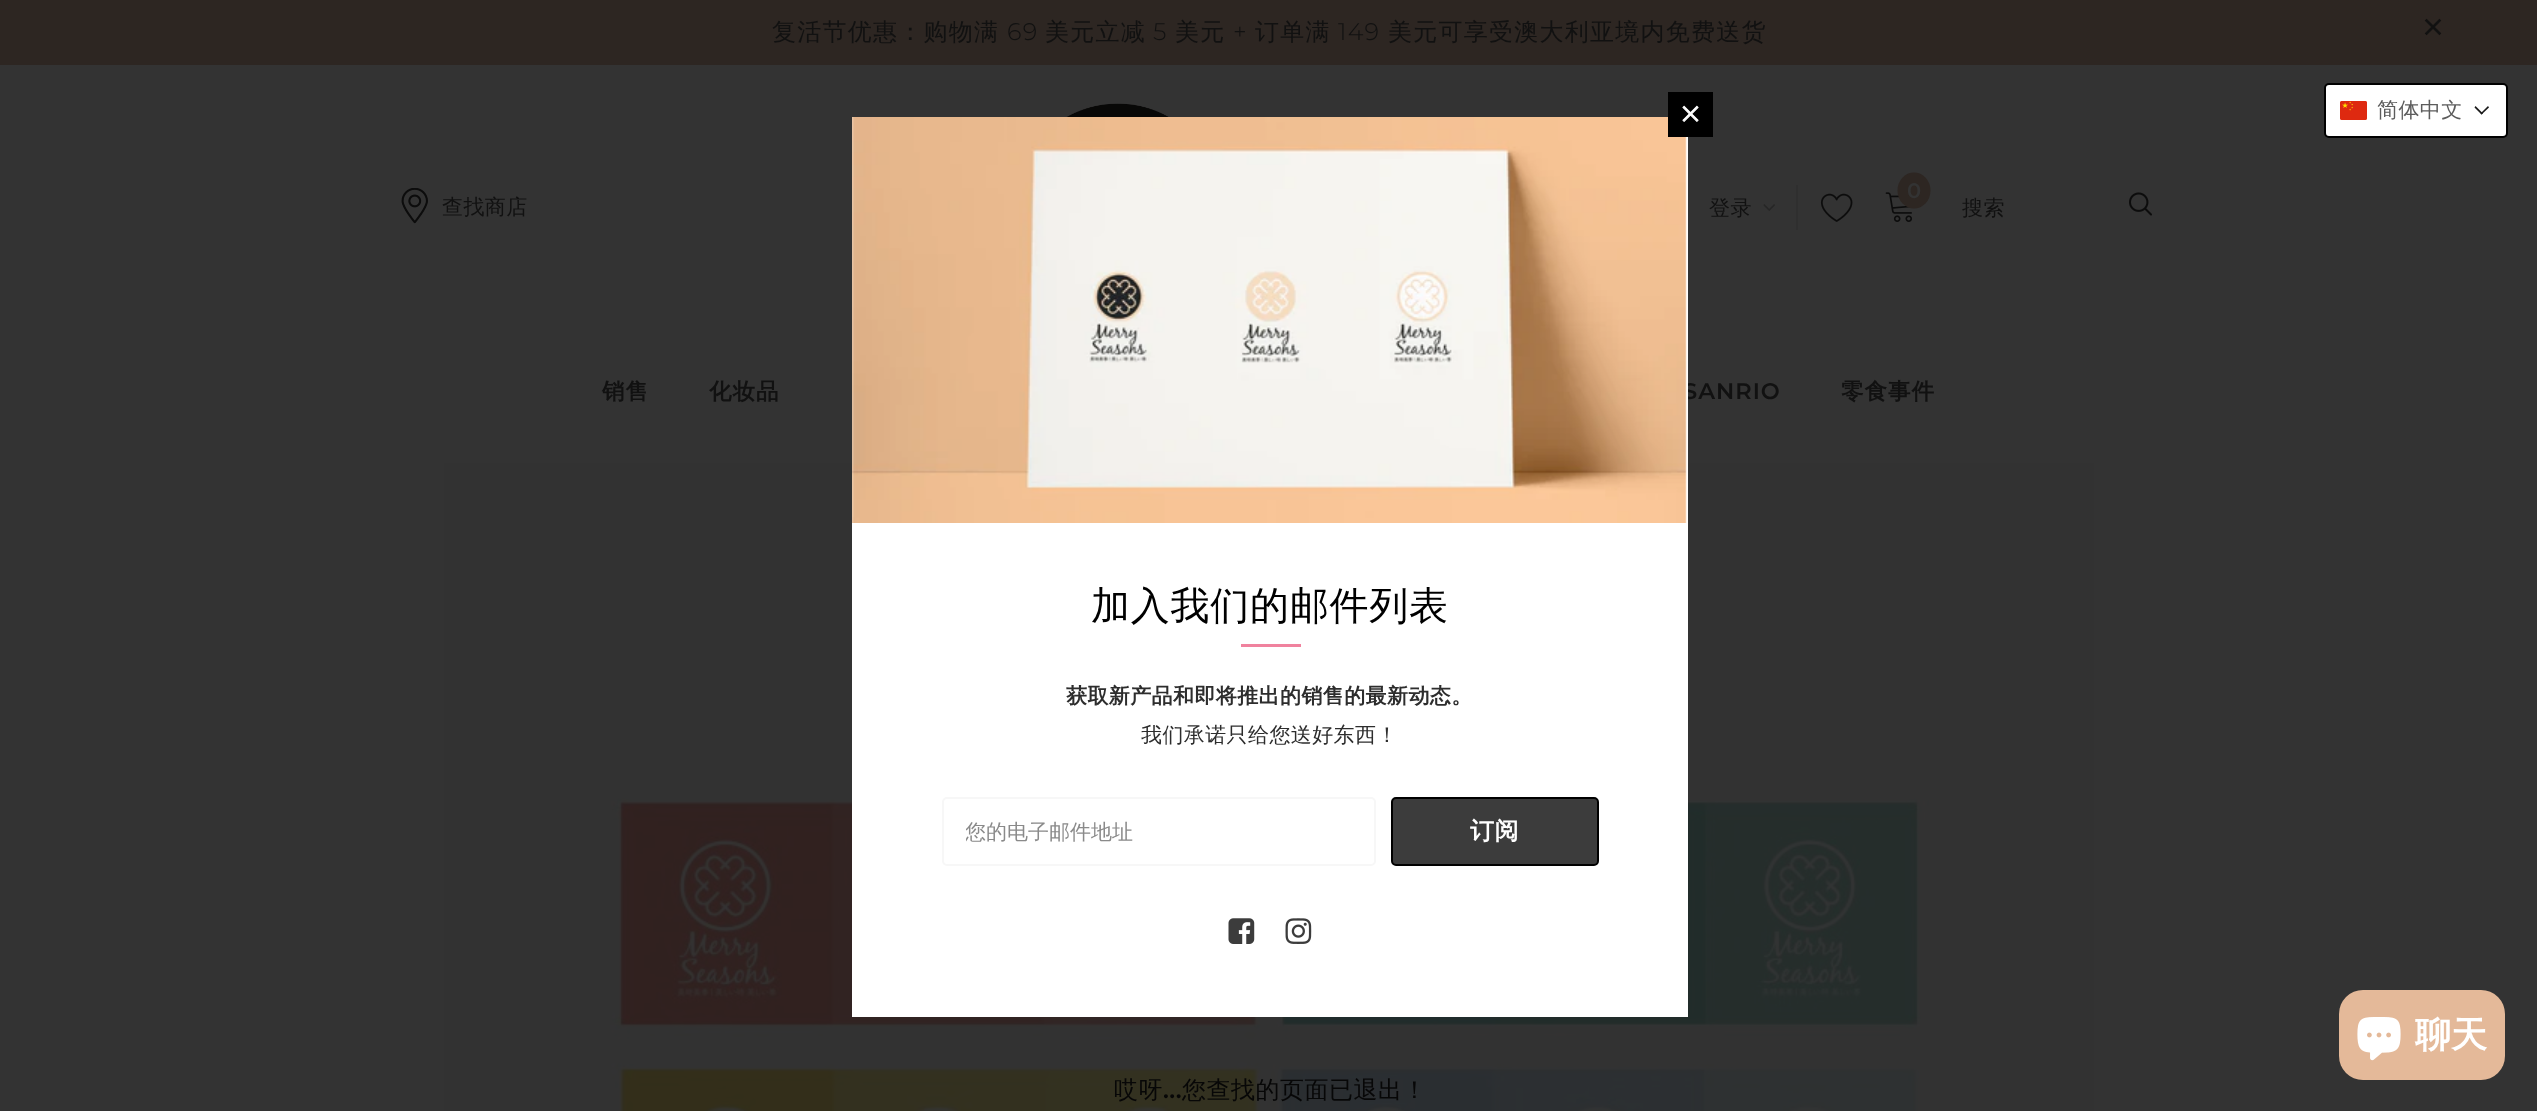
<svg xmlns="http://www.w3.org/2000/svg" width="2537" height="1111">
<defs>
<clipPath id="clip1"><rect x="966" y="819" width="386" height="29"/></clipPath>
</defs>
<rect width="100%" height="100%" fill="#333"/>
<rect width="2537" height="65" fill="#2d2622"/>
<text x="772" y="40" style="font-family:WenQuanYi Zen Hei;font-size:24px;font-weight:500;letter-spacing:1.25px;fill:#111">复活节优惠：购物满</text>
<text x="1007" y="40" style="font-family:Montserrat;font-size:24px;font-weight:300;letter-spacing:1.25px;fill:#111">69</text>
<text x="1045" y="40" style="font-family:WenQuanYi Zen Hei;font-size:24px;font-weight:500;letter-spacing:1.25px;fill:#111">美元立减</text>
<text x="1153" y="40" style="font-family:Montserrat;font-size:24px;font-weight:300;letter-spacing:1.25px;fill:#111">5</text>
<text x="1175" y="40" style="font-family:WenQuanYi Zen Hei;font-size:24px;font-weight:500;letter-spacing:1.25px;fill:#111">美元</text>
<text x="1233" y="40" style="font-family:Montserrat;font-size:24px;font-weight:300;letter-spacing:1.25px;fill:#111">+</text>
<text x="1255" y="40" style="font-family:WenQuanYi Zen Hei;font-size:24px;font-weight:500;letter-spacing:1.25px;fill:#111">订单满</text>
<text x="1338" y="40" style="font-family:Montserrat;font-size:24px;font-weight:300;letter-spacing:1.25px;fill:#111">149</text>
<text x="1388" y="40" style="font-family:WenQuanYi Zen Hei;font-size:24px;font-weight:500;letter-spacing:1.25px;fill:#111">美元可享受澳大利亚境内免费送货</text>
<image x="2424" y="18" width="18" height="18" href="media/1.png"/>
<image x="1066" y="103" width="103" height="14" href="media/2.png"/>
<image x="401" y="188" width="27" height="36" href="media/3.png"/>
<text x="442" y="214" style="font-family:WenQuanYi Zen Hei;font-size:21px;font-weight:500;letter-spacing:0.4px;fill:#111">查找商店</text>
<image x="1885" y="192" width="27" height="30" href="media/4.png"/>
<ellipse cx="1914" cy="190.5" rx="16.5" ry="18" fill="#2d2622"/>
<text x="1907" y="198" style="font-family:Montserrat;font-size:21px;font-weight:600;letter-spacing:0.4px;fill:#333">0</text>
<text x="1709" y="215" style="font-family:WenQuanYi Zen Hei;font-size:21px;font-weight:500;letter-spacing:0.4px;fill:#111">登录</text>
<image x="1763" y="204" width="12" height="7" href="media/5.png"/>
<rect x="1796" y="185" width="2" height="45" fill="#2f2f2f"/>
<image x="1820" y="193" width="33" height="29" href="media/6.png"/>
<text x="1962" y="215" style="font-family:WenQuanYi Zen Hei;font-size:21px;font-weight:500;letter-spacing:0.4px;fill:#111">搜索</text>
<image x="2129" y="192" width="23" height="24" href="media/7.png"/>
<text x="602" y="399" style="font-family:WenQuanYi Zen Hei;font-size:22.5px;font-weight:bold;letter-spacing:1px;fill:#111">销售</text>
<text x="709" y="399" style="font-family:WenQuanYi Zen Hei;font-size:22.5px;font-weight:bold;letter-spacing:1px;fill:#111">化妆品</text>
<text x="1683" y="399" style="font-family:Montserrat;font-size:22.5px;font-weight:600;letter-spacing:1px;fill:#111">SANRIO</text>
<text x="1841" y="399" style="font-family:WenQuanYi Zen Hei;font-size:22.5px;font-weight:bold;letter-spacing:1px;fill:#111">零食事件</text>
<rect x="2325" y="84" width="182" height="53" rx="4" fill="#fff" stroke="#000" stroke-width="2"/>
<image x="2340" y="101" width="27" height="19" href="media/8.png"/>
<text x="2377" y="117" style="font-family:WenQuanYi Zen Hei;font-size:21px;font-weight:500;letter-spacing:0.4px;fill:#5c5c5c">简体中文</text>
<path d="M2488 106l1 1.5l-7.5 7l-1-1z" fill="#1a1a1a"/>
<path d="M2475.5 106l7.5 7.5l-1.5 1l-7-7z" fill="#1a1a1a"/>
<image x="444" y="463" width="1650" height="648" href="media/14.png"/>
<rect x="852" y="117" width="836" height="900" fill="#fff"/>
<image x="852" y="117" width="835" height="406" href="media/10.png"/>
<rect x="1668" y="92" width="45" height="45" fill="#000"/>
<image x="1682" y="105" width="17" height="17" href="media/9.png"/>
<text x="1091" y="619" style="font-family:WenQuanYi Zen Hei;font-size:39px;font-weight:500;letter-spacing:0.75px;fill:#000">加入我们的邮件列表</text>
<rect x="1241" y="644" width="60" height="3" fill="#f0829e"/>
<text x="1066" y="703" style="font-family:WenQuanYi Zen Hei;font-size:21px;font-weight:bold;letter-spacing:0.4px;fill:#2d2d2d">获取新产品和即将推出的销售的最新动态。</text>
<text x="1141" y="742" style="font-family:WenQuanYi Zen Hei;font-size:21px;font-weight:500;letter-spacing:0.4px;fill:#2d2d2d">我们承诺只给您送好东西！</text>
<rect x="943" y="798" width="432" height="67" rx="4" fill="none" stroke="#f7f7f7" stroke-width="2"/>
<g clip-path="url(#clip1)">
<text x="965" y="839" style="font-family:WenQuanYi Zen Hei;font-size:21px;font-weight:500;fill:#8a8a8a">您的电子邮件地址</text>
</g>
<rect x="1392" y="798" width="206" height="67" rx="4" fill="#3c3c3c" stroke="#000" stroke-width="2"/>
<text x="1470" y="839" style="font-family:WenQuanYi Zen Hei;font-size:24px;font-weight:bold;letter-spacing:0.5px;fill:#fff">订阅</text>
<image x="1228" y="918" width="27" height="26" href="media/11.png"/>
<image x="1285" y="918" width="27" height="26" href="media/12.png"/>
<rect x="2339" y="990" width="166" height="90" rx="24" fill="#e4b999"/>
<image x="2357" y="1017" width="44" height="44" href="media/13.png"/>
<text x="2415" y="1047" style="font-family:WenQuanYi Zen Hei;font-size:36px;font-weight:bold;fill:#fff">聊天</text>
<text x="1114" y="1098" style="font-family:WenQuanYi Zen Hei;font-size:24px;font-weight:500;letter-spacing:0.5px;fill:#070707">哎呀</text>
<text x="1163" y="1098" style="font-family:Montserrat;font-size:24px;font-weight:600;letter-spacing:0.5px;fill:#070707">...</text>
<text x="1182" y="1098" style="font-family:WenQuanYi Zen Hei;font-size:24px;font-weight:500;letter-spacing:0.5px;fill:#070707">您查找的页面已退出！</text>
</svg>
